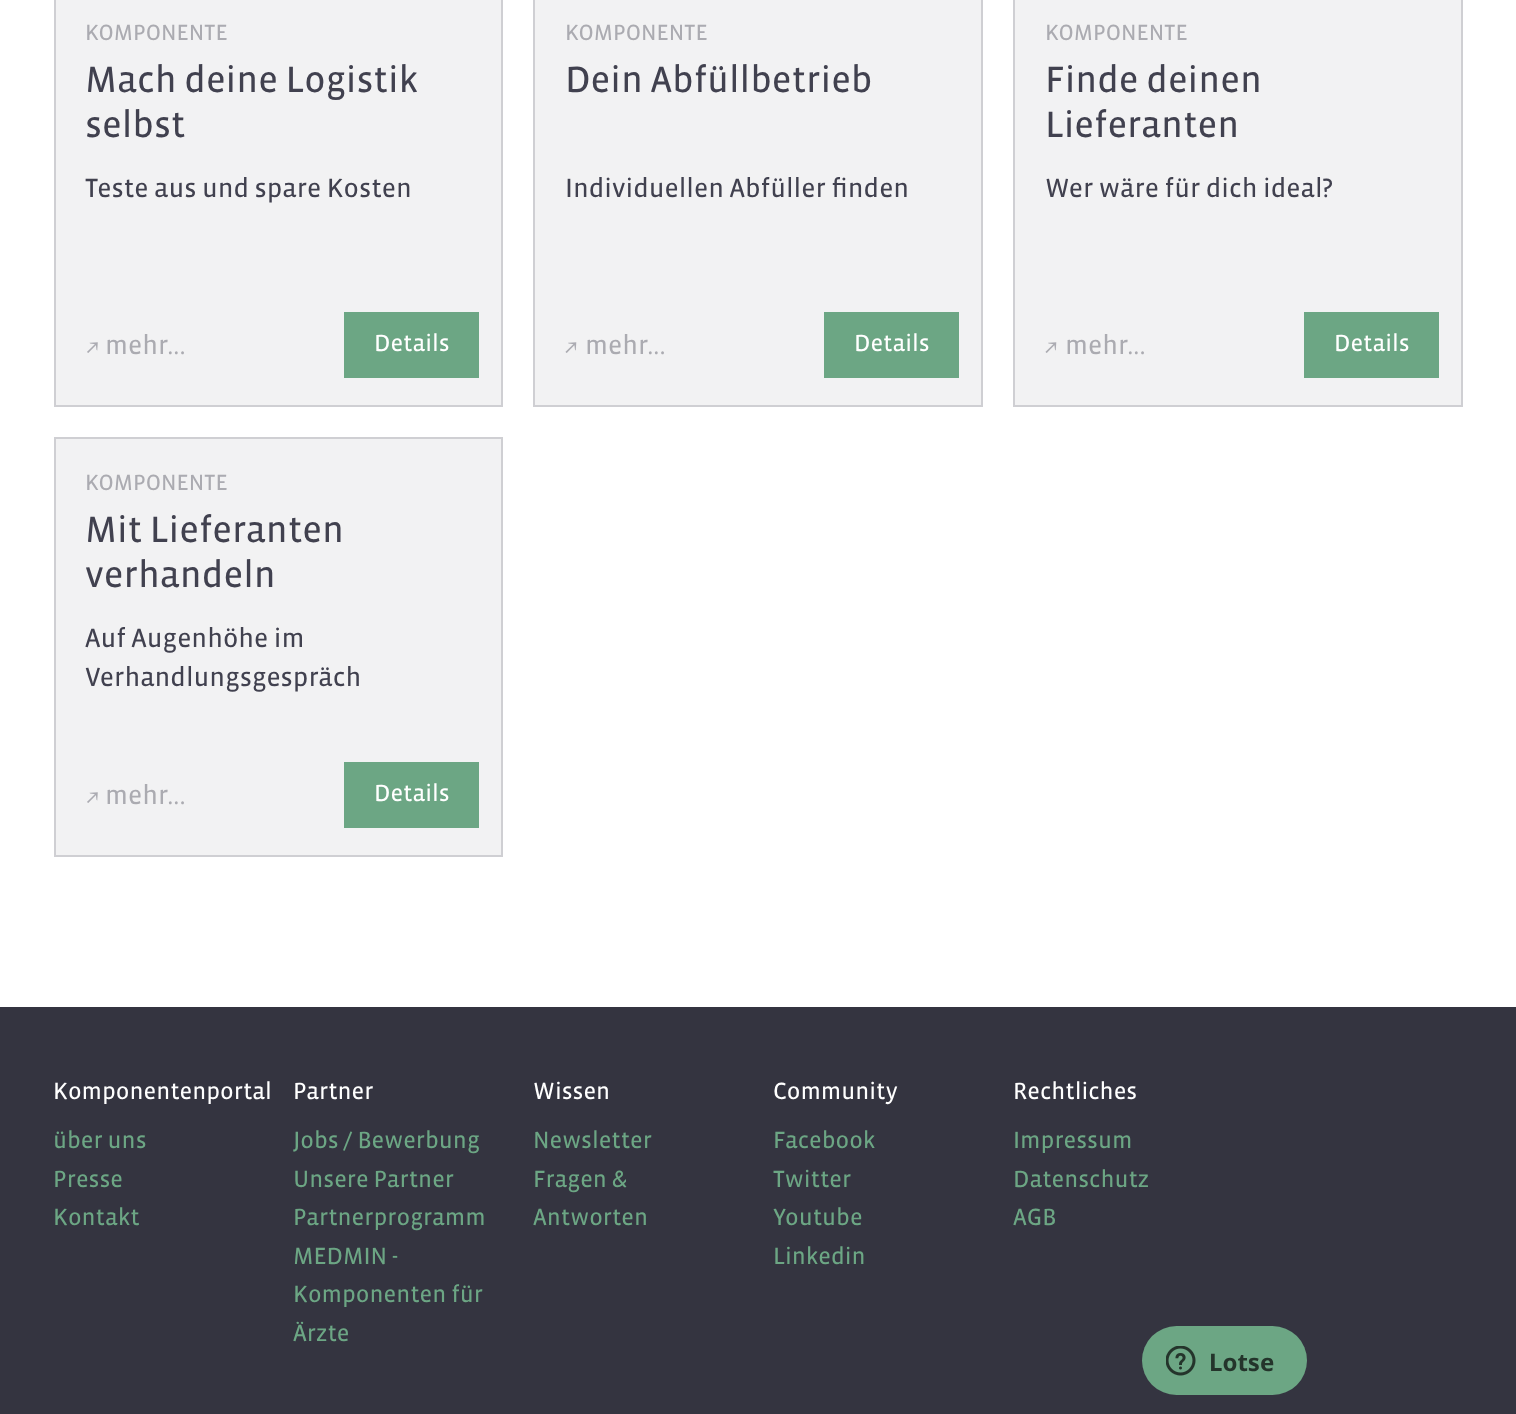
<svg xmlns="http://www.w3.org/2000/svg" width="1516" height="1414">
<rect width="100%" height="100%" fill="#fff"/>
<rect x="55" y="-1" width="447" height="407" fill="#f2f2f3" stroke="#cfcfd3" stroke-width="2"/>
<text x="85" y="40" style="font-family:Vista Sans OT;font-size:22.5px;fill:#ababb1">KOMPONENTE</text>
<text x="85" y="92" style="font-family:Vista Sans OT;font-size:37.5px;fill:#41414f">Mach deine Logistik</text>
<text x="85" y="137" style="font-family:Vista Sans OT;font-size:37.5px;fill:#41414f">selbst</text>
<text x="85" y="197" style="font-family:Vista Sans OT;font-size:27px;fill:#41414f">Teste aus und spare Kosten</text>
<image x="87" y="342" width="11" height="11" href="media/1.png"/>
<text x="105" y="354" style="font-family:Vista Sans OT;font-size:27px;fill:#ababb1">mehr...</text>
<rect x="344" y="312" width="135" height="66" fill="#6ca684"/>
<text x="374" y="351" style="font-family:Vista Sans OT;font-size:24px;fill:#fff">Details</text>
<rect x="534" y="-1" width="448" height="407" fill="#f2f2f3" stroke="#cfcfd3" stroke-width="2"/>
<text x="565" y="40" style="font-family:Vista Sans OT;font-size:22.5px;fill:#ababb1">KOMPONENTE</text>
<text x="565" y="92" style="font-family:Vista Sans OT;font-size:37.5px;fill:#41414f">Dein Abfüllbetrieb</text>
<text x="565" y="197" style="font-family:Vista Sans OT;font-size:27px;fill:#41414f">Individuellen Abfüller finden</text>
<image x="565" y="342" width="12" height="11" href="media/2.png"/>
<text x="585" y="354" style="font-family:Vista Sans OT;font-size:27px;fill:#ababb1">mehr...</text>
<rect x="824" y="312" width="135" height="66" fill="#6ca684"/>
<text x="854" y="351" style="font-family:Vista Sans OT;font-size:24px;fill:#fff">Details</text>
<rect x="1014" y="-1" width="448" height="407" fill="#f2f2f3" stroke="#cfcfd3" stroke-width="2"/>
<text x="1045" y="40" style="font-family:Vista Sans OT;font-size:22.5px;fill:#ababb1">KOMPONENTE</text>
<text x="1045" y="92" style="font-family:Vista Sans OT;font-size:37.5px;fill:#41414f">Finde deinen</text>
<text x="1045" y="137" style="font-family:Vista Sans OT;font-size:37.5px;fill:#41414f">Lieferanten</text>
<text x="1045" y="197" style="font-family:Vista Sans OT;font-size:27px;fill:#41414f">Wer wäre für dich ideal?</text>
<image x="1045" y="342" width="12" height="11" href="media/2.png"/>
<text x="1065" y="354" style="font-family:Vista Sans OT;font-size:27px;fill:#ababb1">mehr...</text>
<rect x="1304" y="312" width="135" height="66" fill="#6ca684"/>
<text x="1334" y="351" style="font-family:Vista Sans OT;font-size:24px;fill:#fff">Details</text>
<rect x="55" y="438" width="447" height="418" fill="#f2f2f3" stroke="#cfcfd3" stroke-width="2"/>
<text x="85" y="490" style="font-family:Vista Sans OT;font-size:22.5px;fill:#ababb1">KOMPONENTE</text>
<text x="85" y="542" style="font-family:Vista Sans OT;font-size:37.5px;fill:#41414f">Mit Lieferanten</text>
<text x="85" y="587" style="font-family:Vista Sans OT;font-size:37.5px;fill:#41414f">verhandeln</text>
<text x="85" y="647" style="font-family:Vista Sans OT;font-size:27px;fill:#41414f">Auf Augenhöhe im</text>
<text x="85" y="686" style="font-family:Vista Sans OT;font-size:27px;fill:#41414f">Verhandlungsgespräch</text>
<image x="87" y="792" width="11" height="11" href="media/1.png"/>
<text x="105" y="804" style="font-family:Vista Sans OT;font-size:27px;fill:#ababb1">mehr...</text>
<rect x="344" y="762" width="135" height="66" fill="#6ca684"/>
<text x="374" y="801" style="font-family:Vista Sans OT;font-size:24px;fill:#fff">Details</text>
<rect y="1007" width="1516" height="407" fill="#343440"/>
<text x="53" y="1099" style="font-family:Vista Sans OT;font-size:24px;fill:#fff">Komponentenportal</text>
<text x="53" y="1148" style="font-family:Vista Sans OT;font-size:24px;fill:#6ca684">über uns</text>
<text x="53" y="1187" style="font-family:Vista Sans OT;font-size:24px;fill:#6ca684">Presse</text>
<text x="53" y="1225" style="font-family:Vista Sans OT;font-size:24px;fill:#6ca684">Kontakt</text>
<text x="293" y="1099" style="font-family:Vista Sans OT;font-size:24px;fill:#fff">Partner</text>
<text x="293" y="1148" style="font-family:Vista Sans OT;font-size:24px;fill:#6ca684">Jobs / Bewerbung</text>
<text x="293" y="1187" style="font-family:Vista Sans OT;font-size:24px;fill:#6ca684">Unsere Partner</text>
<text x="293" y="1225" style="font-family:Vista Sans OT;font-size:24px;fill:#6ca684">Partnerprogramm</text>
<text x="293" y="1264" style="font-family:Vista Sans OT;font-size:24px;fill:#6ca684">MEDMIN -</text>
<text x="293" y="1302" style="font-family:Vista Sans OT;font-size:24px;fill:#6ca684">Komponenten für</text>
<text x="293" y="1341" style="font-family:Vista Sans OT;font-size:24px;fill:#6ca684">Ärzte</text>
<text x="533" y="1099" style="font-family:Vista Sans OT;font-size:24px;fill:#fff">Wissen</text>
<text x="533" y="1148" style="font-family:Vista Sans OT;font-size:24px;fill:#6ca684">Newsletter</text>
<text x="533" y="1187" style="font-family:Vista Sans OT;font-size:24px;fill:#6ca684">Fragen &amp;</text>
<text x="533" y="1225" style="font-family:Vista Sans OT;font-size:24px;fill:#6ca684">Antworten</text>
<text x="773" y="1099" style="font-family:Vista Sans OT;font-size:24px;fill:#fff">Community</text>
<text x="773" y="1148" style="font-family:Vista Sans OT;font-size:24px;fill:#6ca684">Facebook</text>
<text x="773" y="1187" style="font-family:Vista Sans OT;font-size:24px;fill:#6ca684">Twitter</text>
<text x="773" y="1225" style="font-family:Vista Sans OT;font-size:24px;fill:#6ca684">Youtube</text>
<text x="773" y="1264" style="font-family:Vista Sans OT;font-size:24px;fill:#6ca684">Linkedin</text>
<text x="1013" y="1099" style="font-family:Vista Sans OT;font-size:24px;fill:#fff">Rechtliches</text>
<text x="1013" y="1148" style="font-family:Vista Sans OT;font-size:24px;fill:#6ca684">Impressum</text>
<text x="1013" y="1187" style="font-family:Vista Sans OT;font-size:24px;fill:#6ca684">Datenschutz</text>
<text x="1013" y="1225" style="font-family:Vista Sans OT;font-size:24px;fill:#6ca684">AGB</text>
<rect x="1142" y="1326" width="165" height="69" rx="34.5" fill="#6ca684"/>
<image x="1166" y="1346" width="30" height="30" href="media/3.png"/>
<text x="1209" y="1371" style="font-family:Noto Sans;font-size:24px;font-weight:bold;fill:#24342b">Lotse</text>
</svg>
